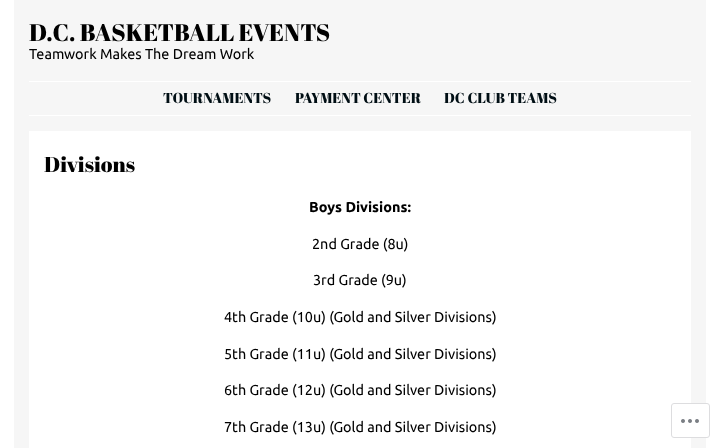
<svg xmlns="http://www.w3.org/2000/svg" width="720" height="448">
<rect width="100%" height="100%" fill="#fff"/>
<rect x="14" width="692" height="448" fill="#f6f6f6"/>
<text x="29" y="41" style="font-family:Abril Fatface;font-size:24px;fill:#000">D.C. BASKETBALL EVENTS</text>
<text x="29" y="59" style="font-family:Ubuntu;font-size:14.4px;fill:#000">Teamwork Makes The Dream Work</text>
<rect x="29" y="81" width="662" height="1" fill="#fff"/>
<rect x="29" y="115" width="662" height="1" fill="#fff"/>
<text x="163" y="103" style="font-family:Abril Fatface;font-size:14.4px;fill:#000e14">TOURNAMENTS</text>
<text x="295" y="103" style="font-family:Abril Fatface;font-size:14.4px;fill:#000e14">PAYMENT CENTER</text>
<text x="444" y="103" style="font-family:Abril Fatface;font-size:14.4px;fill:#000e14">DC CLUB TEAMS</text>
<rect x="29" y="131" width="662" height="317" fill="#fff"/>
<text x="44" y="172" style="font-family:Abril Fatface;font-size:21.5px;fill:#000">Divisions</text>
<text x="309" y="212" style="font-family:Ubuntu;font-size:14.4px;font-weight:bold;fill:#000">Boys Divisions:</text>
<text x="312" y="249" style="font-family:Ubuntu;font-size:14.4px;fill:#000">2nd Grade (8u)</text>
<text x="313" y="285" style="font-family:Ubuntu;font-size:14.4px;fill:#000">3rd Grade (9u)</text>
<text x="224" y="322" style="font-family:Ubuntu;font-size:14.4px;fill:#000">4th Grade (10u) (Gold and Silver Divisions)</text>
<text x="224" y="359" style="font-family:Ubuntu;font-size:14.4px;fill:#000">5th Grade (11u) (Gold and Silver Divisions)</text>
<text x="224" y="395" style="font-family:Ubuntu;font-size:14.4px;fill:#000">6th Grade (12u) (Gold and Silver Divisions)</text>
<text x="224" y="432" style="font-family:Ubuntu;font-size:14.4px;fill:#000">7th Grade (13u) (Gold and Silver Divisions)</text>
<rect x="671.5" y="403.5" width="38" height="34" rx="2.5" fill="#fffffffa" stroke="#dddddf"/>
<image x="681" y="419" width="18" height="4" href="media/1.png"/>
</svg>
